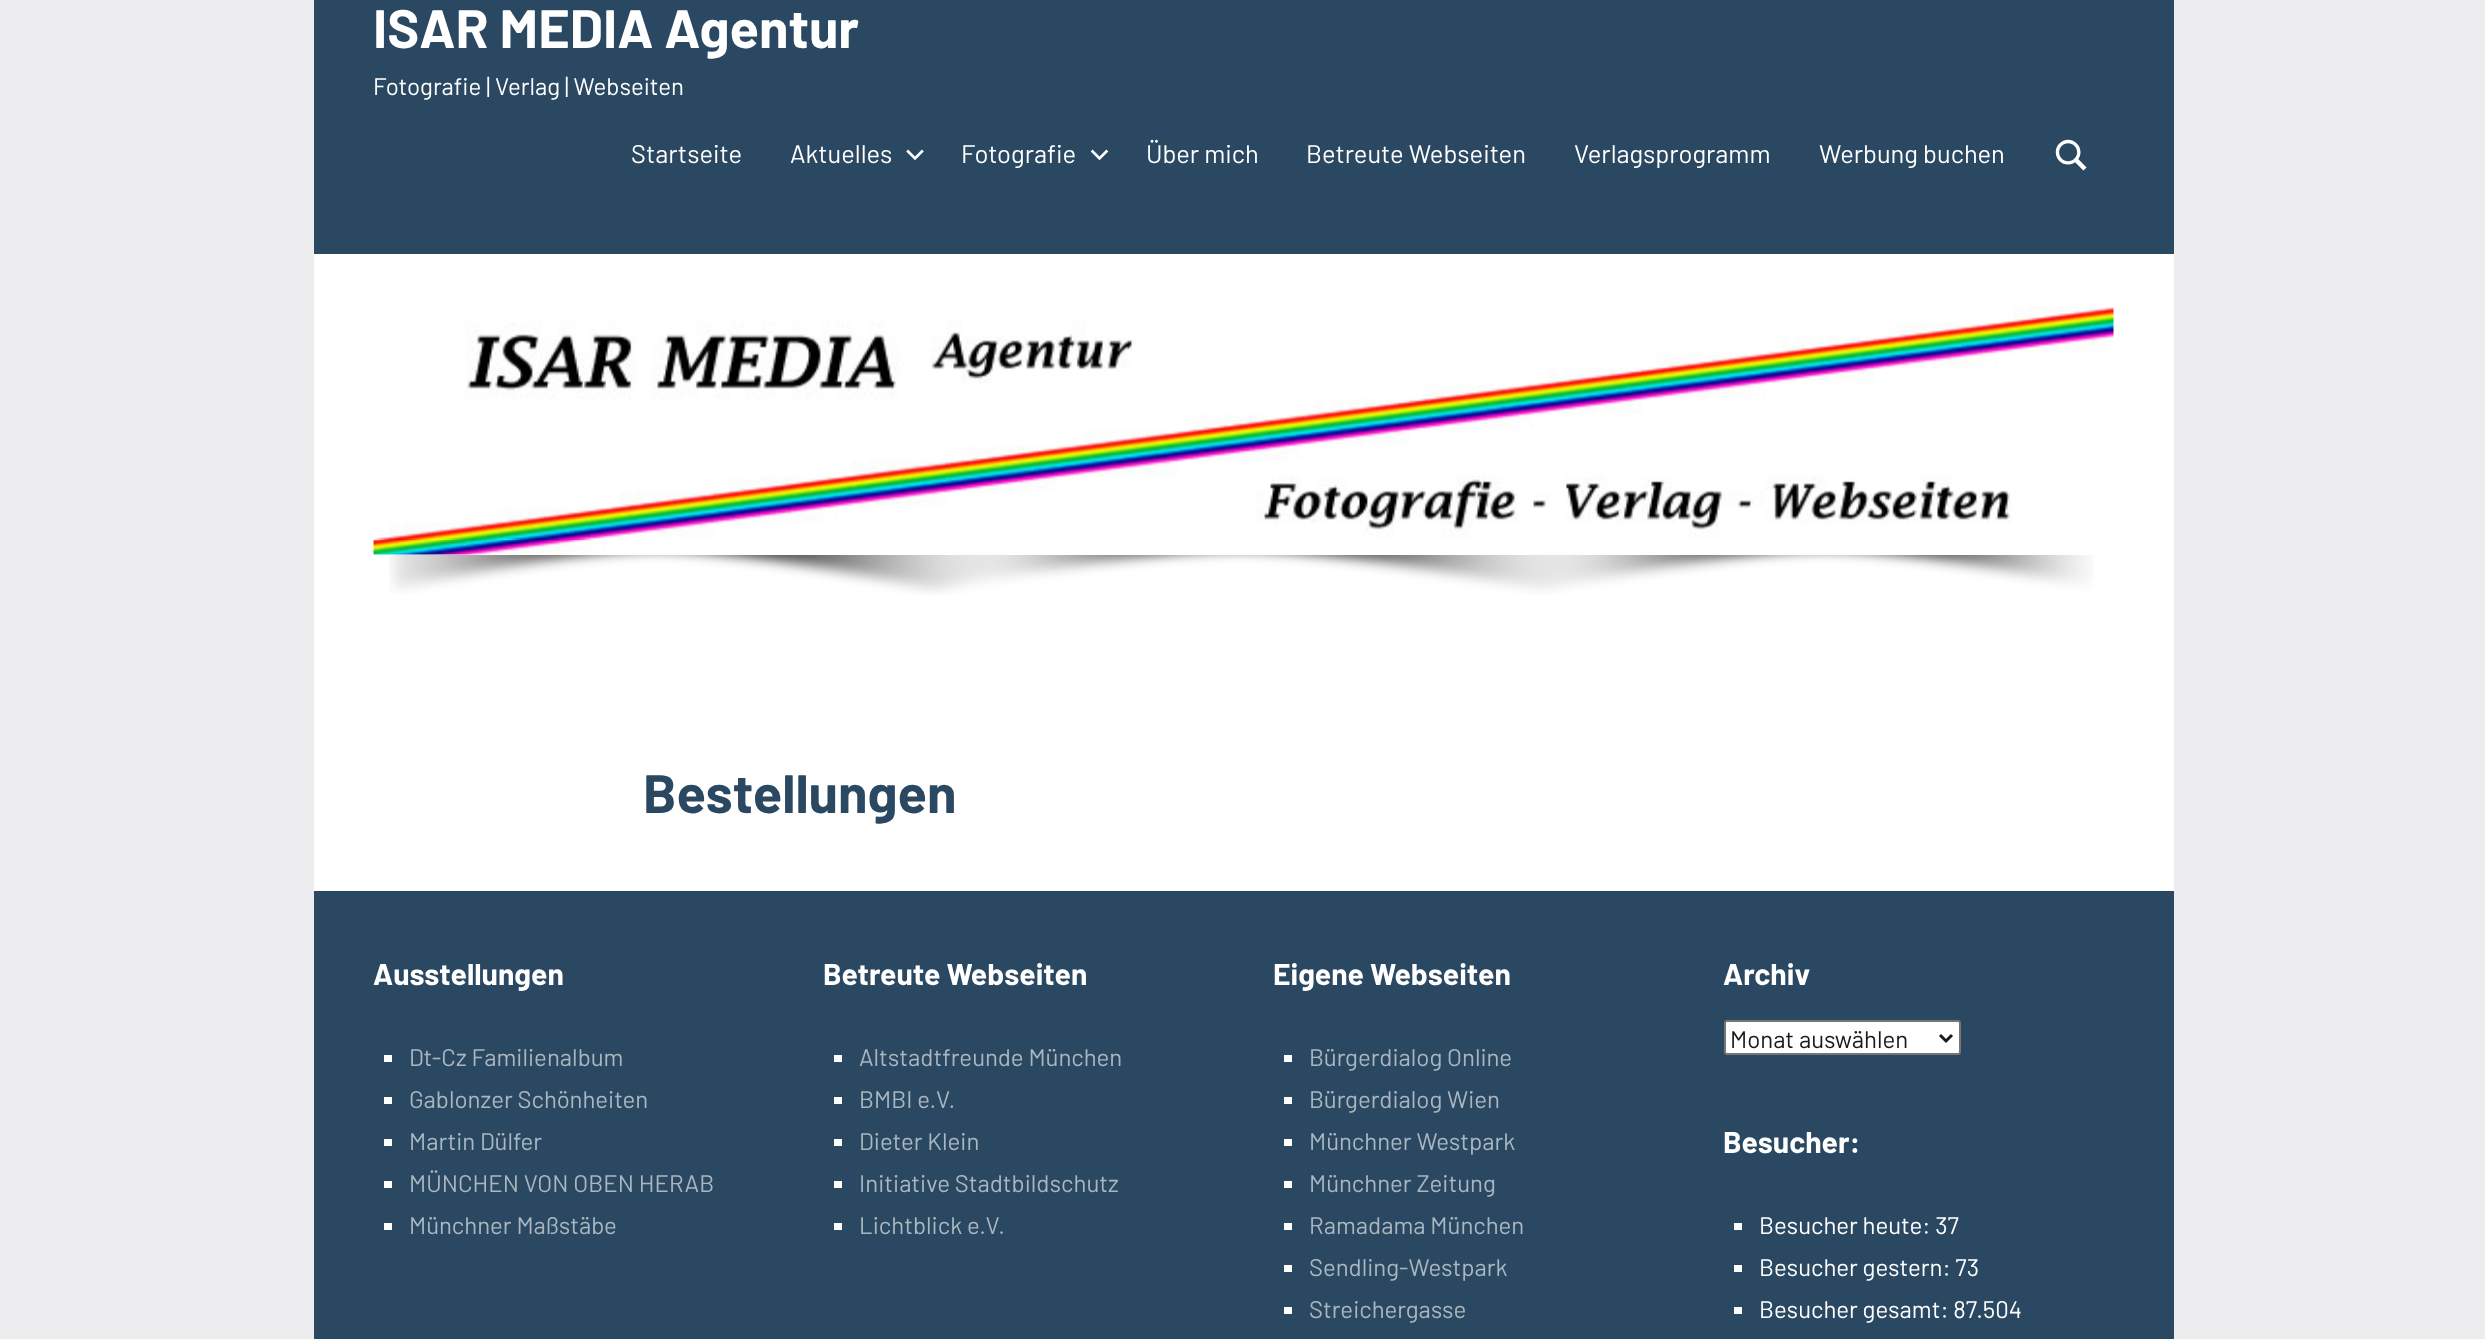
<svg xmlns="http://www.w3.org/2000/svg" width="2485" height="1339">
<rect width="100%" height="100%" fill="#ededef"/>
<rect x="314" width="1860" height="254" fill="#2a4861"/>
<text x="373" y="48" style="font-family:Barlow;font-size:54px;font-weight:bold;fill:#fff">ISAR MEDIA Agentur</text>
<text x="373" y="95" style="font-family:Barlow;font-size:24px;fill:#fff">Fotografie | Verlag | Webseiten</text>
<text x="631" y="163" style="font-family:Barlow;font-size:25.5px;fill:#fff">Startseite</text>
<text x="790" y="163" style="font-family:Barlow;font-size:25.5px;fill:#fff">Aktuelles</text>
<image x="906" y="149" width="18" height="12" href="media/1.png"/>
<text x="961" y="163" style="font-family:Barlow;font-size:25.5px;fill:#fff">Fotografie</text>
<image x="1090" y="149" width="19" height="12" href="media/2.png"/>
<text x="1146" y="163" style="font-family:Barlow;font-size:25.5px;fill:#fff">Über mich</text>
<text x="1306" y="163" style="font-family:Barlow;font-size:25.5px;fill:#fff">Betreute Webseiten</text>
<text x="1574" y="163" style="font-family:Barlow;font-size:25.5px;fill:#fff">Verlagsprogramm</text>
<text x="1819" y="163" style="font-family:Barlow;font-size:25.5px;fill:#fff">Werbung buchen</text>
<image x="2055" y="139" width="32" height="32" href="media/3.png"/>
<rect x="314" y="254" width="1860" height="637" fill="#fff"/>
<image x="373" y="306" width="1741" height="249" href="media/4.png"/>
<image x="389" y="555" width="1704" height="40" href="media/5.png"/>
<text x="643" y="813" style="font-family:Barlow;font-size:54px;font-weight:bold;fill:#2a4861">Bestellungen</text>
<rect x="314" y="891" width="1860" height="448" fill="#2a4861"/>
<text x="373" y="985" style="font-family:Barlow;font-size:30px;font-weight:bold;fill:#fff">Ausstellungen</text>
<rect x="384" y="1055" width="8" height="7" fill="#fff"/>
<text x="409" y="1066" style="font-family:Barlow;font-size:24px;fill:#aab6c0">Dt-Cz Familienalbum</text>
<rect x="384" y="1097" width="8" height="7" fill="#fff"/>
<text x="409" y="1108" style="font-family:Barlow;font-size:24px;fill:#aab6c0">Gablonzer Schönheiten</text>
<rect x="384" y="1139" width="8" height="7" fill="#fff"/>
<text x="409" y="1150" style="font-family:Barlow;font-size:24px;fill:#aab6c0">Martin Dülfer</text>
<rect x="384" y="1181" width="8" height="7" fill="#fff"/>
<text x="409" y="1192" style="font-family:Barlow;font-size:24px;fill:#aab6c0">MÜNCHEN VON OBEN HERAB</text>
<rect x="384" y="1223" width="8" height="7" fill="#fff"/>
<text x="409" y="1234" style="font-family:Barlow;font-size:24px;fill:#aab6c0">Münchner Maßstäbe</text>
<text x="823" y="985" style="font-family:Barlow;font-size:30px;font-weight:bold;fill:#fff">Betreute Webseiten</text>
<rect x="834" y="1055" width="8" height="7" fill="#fff"/>
<text x="859" y="1066" style="font-family:Barlow;font-size:24px;fill:#aab6c0">Altstadtfreunde München</text>
<rect x="834" y="1097" width="8" height="7" fill="#fff"/>
<text x="859" y="1108" style="font-family:Barlow;font-size:24px;fill:#aab6c0">BMBI e.V.</text>
<rect x="834" y="1139" width="8" height="7" fill="#fff"/>
<text x="859" y="1150" style="font-family:Barlow;font-size:24px;fill:#aab6c0">Dieter Klein</text>
<rect x="834" y="1181" width="8" height="7" fill="#fff"/>
<text x="859" y="1192" style="font-family:Barlow;font-size:24px;fill:#aab6c0">Initiative Stadtbildschutz</text>
<rect x="834" y="1223" width="8" height="7" fill="#fff"/>
<text x="859" y="1234" style="font-family:Barlow;font-size:24px;fill:#aab6c0">Lichtblick e.V.</text>
<text x="1273" y="985" style="font-family:Barlow;font-size:30px;font-weight:bold;fill:#fff">Eigene Webseiten</text>
<rect x="1284" y="1055" width="8" height="7" fill="#fff"/>
<text x="1309" y="1066" style="font-family:Barlow;font-size:24px;fill:#aab6c0">Bürgerdialog Online</text>
<rect x="1284" y="1097" width="8" height="7" fill="#fff"/>
<text x="1309" y="1108" style="font-family:Barlow;font-size:24px;fill:#aab6c0">Bürgerdialog Wien</text>
<rect x="1284" y="1139" width="8" height="7" fill="#fff"/>
<text x="1309" y="1150" style="font-family:Barlow;font-size:24px;fill:#aab6c0">Münchner Westpark</text>
<rect x="1284" y="1181" width="8" height="7" fill="#fff"/>
<text x="1309" y="1192" style="font-family:Barlow;font-size:24px;fill:#aab6c0">Münchner Zeitung</text>
<rect x="1284" y="1223" width="8" height="7" fill="#fff"/>
<text x="1309" y="1234" style="font-family:Barlow;font-size:24px;fill:#aab6c0">Ramadama München</text>
<rect x="1284" y="1265" width="8" height="7" fill="#fff"/>
<text x="1309" y="1276" style="font-family:Barlow;font-size:24px;fill:#aab6c0">Sendling-Westpark</text>
<rect x="1284" y="1307" width="8" height="7" fill="#fff"/>
<text x="1309" y="1318" style="font-family:Barlow;font-size:24px;fill:#aab6c0">Streichergasse</text>
<text x="1723" y="985" style="font-family:Barlow;font-size:30px;font-weight:bold;fill:#fff">Archiv</text>
<rect x="1725" y="1021" width="235" height="33" rx="2" fill="#fff" stroke="#767676" stroke-width="2"/>
<path d="M1940 1035l6 6l6-6" fill="none" stroke="#1a1a1a" stroke-width="3"/>
<text x="1730" y="1048" style="font-family:Barlow;font-size:24px;fill:#1a1a1a">Monat auswählen</text>
<text x="1723" y="1153" style="font-family:Barlow;font-size:30px;font-weight:bold;fill:#fff">Besucher:</text>
<rect x="1734" y="1223" width="8" height="7" fill="#fff"/>
<text x="1759" y="1234" style="font-family:Barlow;font-size:24px;fill:#fff">Besucher heute: 37</text>
<rect x="1734" y="1265" width="8" height="7" fill="#fff"/>
<text x="1759" y="1276" style="font-family:Barlow;font-size:24px;fill:#fff">Besucher gestern: 73</text>
<rect x="1734" y="1307" width="8" height="7" fill="#fff"/>
<text x="1759" y="1318" style="font-family:Barlow;font-size:24px;fill:#fff">Besucher gesamt: 87.504</text>
</svg>
